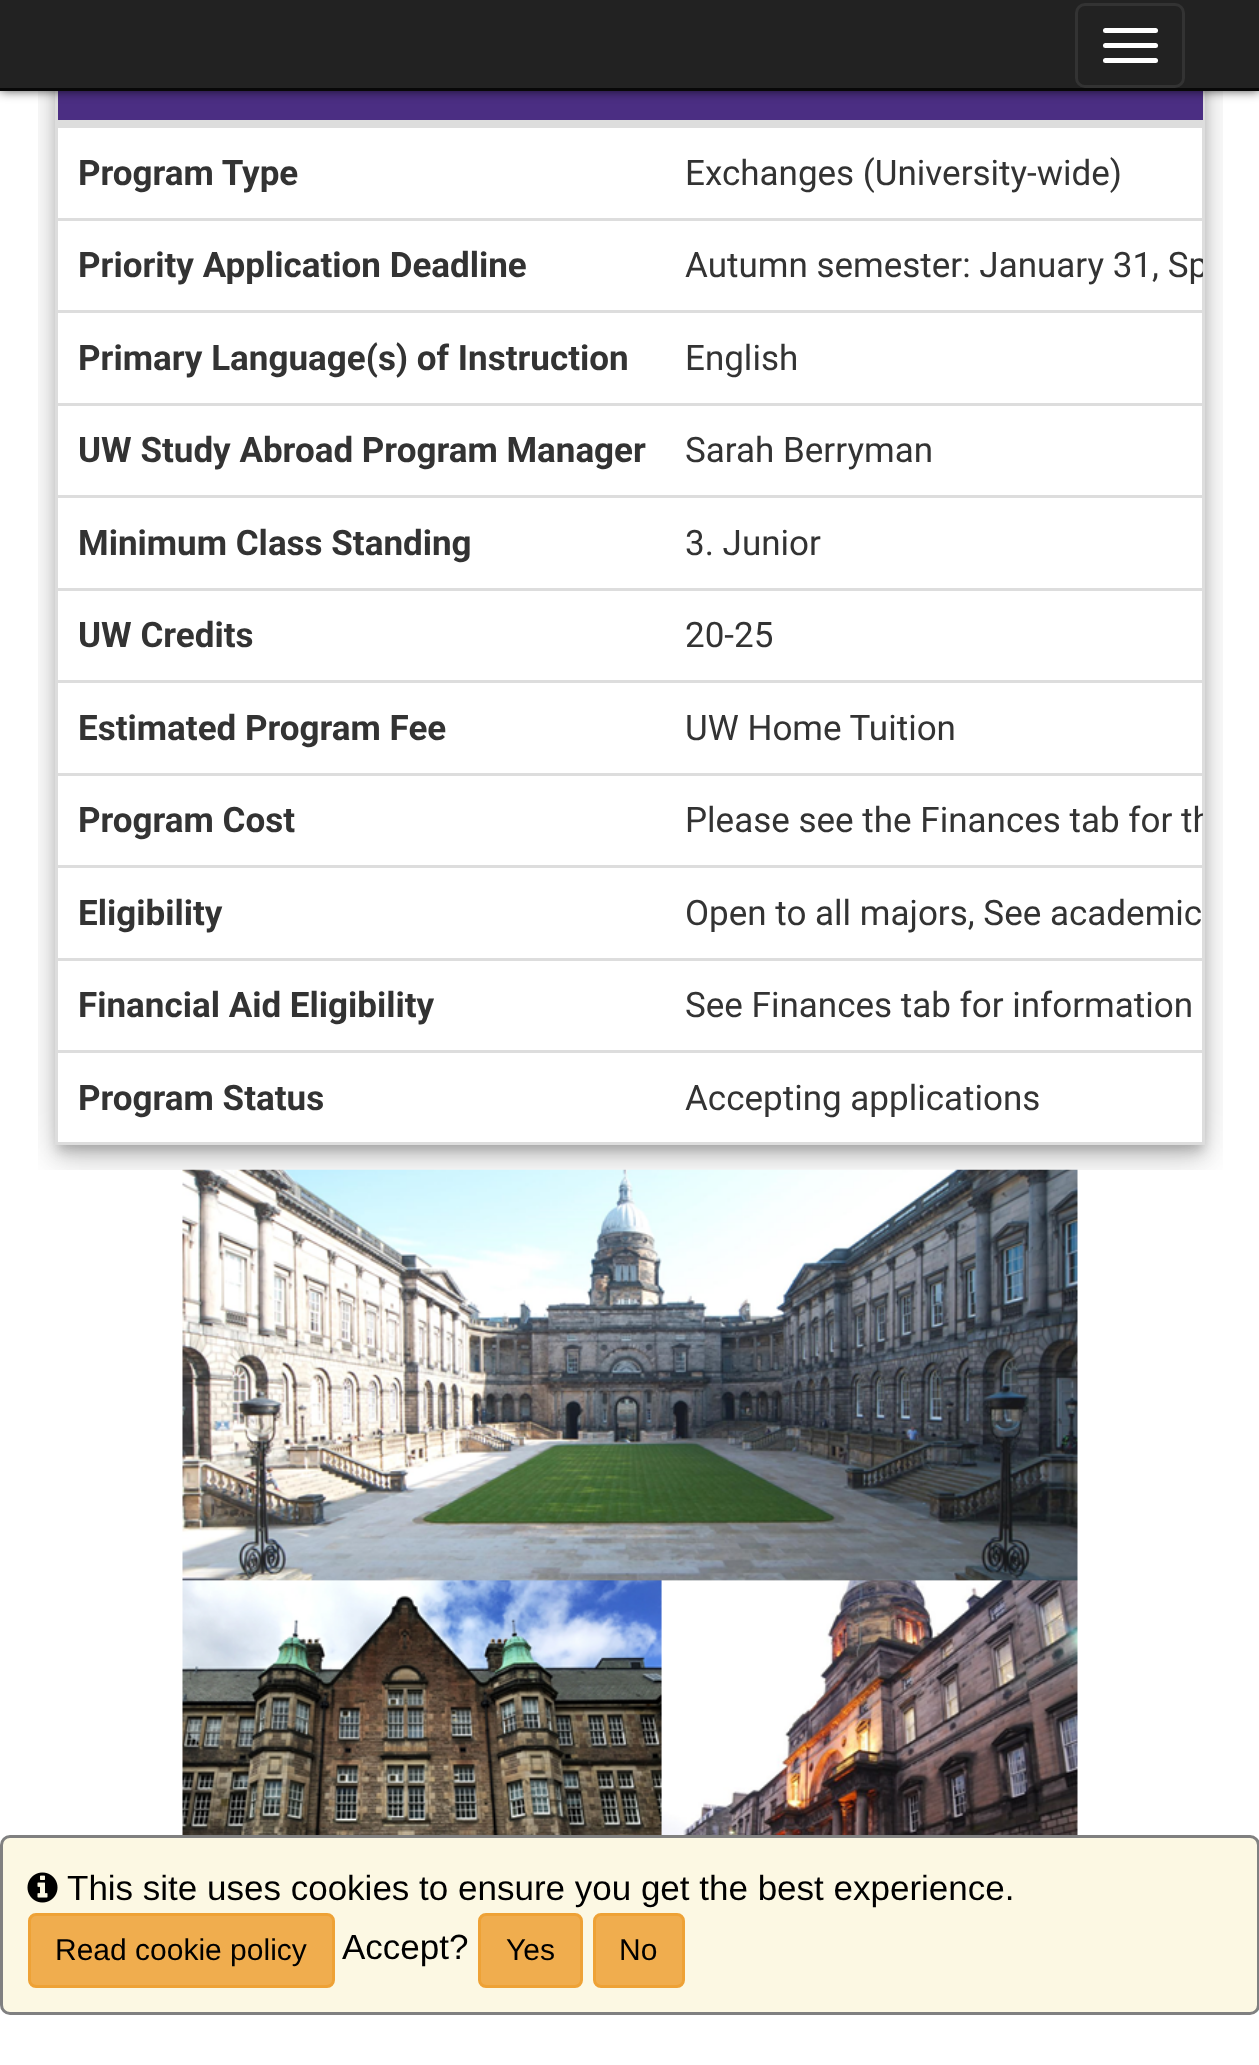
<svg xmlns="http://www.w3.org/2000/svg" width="1259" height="2065">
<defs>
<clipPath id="clip1"><rect x="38" y="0" width="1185" height="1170"/></clipPath>
<clipPath id="clip2"><path d="M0 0h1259v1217h-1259zm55-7h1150v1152h-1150z" clip-rule="evenodd"/></clipPath>
<clipPath id="clip3"><path d="M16 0h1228v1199h-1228zm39-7h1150v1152h-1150z" clip-rule="evenodd"/></clipPath>
<clipPath id="clip4"><path d="M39 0h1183v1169h-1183zm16-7h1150v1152h-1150z" clip-rule="evenodd"/></clipPath>
<clipPath id="clip5"><rect x="58" width="1145" height="1143"/></clipPath>
</defs>
<rect width="100%" height="100%" fill="#fff"/>
<g clip-path="url(#clip1)">
<g clip-path="url(#clip2)">
<rect x="55" y="-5" width="1150" height="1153" fill="#0000001f" filter="blur(22.5px)"/>
</g>
</g>
<g clip-path="url(#clip1)">
<g clip-path="url(#clip3)">
<rect x="55" y="8" width="1150" height="1152" fill="#00000024" filter="blur(12.5px)"/>
</g>
</g>
<g clip-path="url(#clip4)">
<rect x="58" y="3" width="1145" height="1147" fill="#00000033" filter="blur(6px)"/>
</g>
<rect x="56.5" y="-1.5" width="1147" height="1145" fill="none" stroke="#ddd" stroke-width="3"/>
<rect x="58" y="91" width="1145" height="29" fill="#4b2e83"/>
<rect width="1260" height="90" fill="#000000cc" filter="blur(6px)"/>
<rect width="1259" height="88" fill="#222"/>
<rect y="88" width="1259" height="3" fill="#080808"/>
<rect x="1076.5" y="4.5" width="107" height="82" rx="8.5" fill="none" stroke="#333" stroke-width="3"/>
<rect x="1103" y="28" width="55" height="5" rx="2.5" fill="#fff"/>
<rect x="1103" y="43" width="55" height="5" rx="2.5" fill="#fff"/>
<rect x="1103" y="58" width="55" height="5" rx="2.5" fill="#fff"/>
<text x="78" y="185" style="font-family:Roboto;font-size:35px;font-weight:bold;fill:#333">Program Type</text>
<rect x="58" y="120" width="1145" height="8" fill="#ddd"/>
<text x="685" y="185" style="font-family:Roboto;font-size:35px;fill:#333">Exchanges (University-wide)</text>
<text x="78" y="277" style="font-family:Roboto;font-size:35px;font-weight:bold;fill:#333">Priority Application Deadline</text>
<rect x="58" y="218" width="1145" height="3" fill="#ddd"/>
<g clip-path="url(#clip5)">
<text x="685" y="277" style="font-family:Roboto;font-size:35px;fill:#333">Autumn semester: January 31, Sp</text>
</g>
<text x="78" y="370" style="font-family:Roboto;font-size:35px;font-weight:bold;fill:#333">Primary Language(s) of Instruction</text>
<rect x="58" y="310" width="1145" height="3" fill="#ddd"/>
<text x="685" y="370" style="font-family:Roboto;font-size:35px;fill:#333">English</text>
<text x="78" y="462" style="font-family:Roboto;font-size:35px;font-weight:bold;fill:#333">UW Study Abroad Program Manager</text>
<rect x="58" y="403" width="1145" height="3" fill="#ddd"/>
<text x="685" y="462" style="font-family:Roboto;font-size:35px;fill:#333">Sarah Berryman</text>
<text x="78" y="555" style="font-family:Roboto;font-size:35px;font-weight:bold;fill:#333">Minimum Class Standing</text>
<rect x="58" y="495" width="1145" height="3" fill="#ddd"/>
<text x="685" y="555" style="font-family:Roboto;font-size:35px;fill:#333">3. Junior</text>
<text x="78" y="647" style="font-family:Roboto;font-size:35px;font-weight:bold;fill:#333">UW Credits</text>
<rect x="58" y="588" width="1145" height="3" fill="#ddd"/>
<text x="685" y="647" style="font-family:Roboto;font-size:35px;fill:#333">20-25</text>
<text x="78" y="740" style="font-family:Roboto;font-size:35px;font-weight:bold;fill:#333">Estimated Program Fee</text>
<rect x="58" y="680" width="1145" height="3" fill="#ddd"/>
<text x="685" y="740" style="font-family:Roboto;font-size:35px;fill:#333">UW Home Tuition</text>
<text x="78" y="832" style="font-family:Roboto;font-size:35px;font-weight:bold;fill:#333">Program Cost</text>
<rect x="58" y="773" width="1145" height="3" fill="#ddd"/>
<g clip-path="url(#clip5)">
<text x="685" y="832" style="font-family:Roboto;font-size:35px;fill:#333">Please see the Finances tab for th</text>
</g>
<text x="78" y="925" style="font-family:Roboto;font-size:35px;font-weight:bold;fill:#333">Eligibility</text>
<rect x="58" y="865" width="1145" height="3" fill="#ddd"/>
<text x="685" y="925" style="font-family:Roboto;font-size:35px;fill:#333">Open to all majors, See academic</text>
<text x="78" y="1017" style="font-family:Roboto;font-size:35px;font-weight:bold;fill:#333">Financial Aid Eligibility</text>
<rect x="58" y="958" width="1145" height="3" fill="#ddd"/>
<text x="685" y="1017" style="font-family:Roboto;font-size:35px;fill:#333">See Finances tab for information</text>
<text x="78" y="1110" style="font-family:Roboto;font-size:35px;font-weight:bold;fill:#333">Program Status</text>
<rect x="58" y="1050" width="1145" height="3" fill="#ddd"/>
<text x="685" y="1110" style="font-family:Roboto;font-size:35px;fill:#333">Accepting applications</text>
<image x="182" y="1169" width="896" height="666" href="media/1.png"/>
<rect x="1.5" y="1836.5" width="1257" height="177" rx="8.5" fill="#fcf8e3" stroke="#808080" stroke-width="3"/>
<image x="27" y="1872" width="31" height="31" href="media/2.png"/>
<text x="67" y="1900" style="font-family:Liberation Sans;font-size:35px;fill:#000">This site uses cookies to ensure you get the best experience.</text>
<rect x="29.5" y="1914.5" width="304" height="72" rx="6.5" fill="#f0ad4e" stroke="#eea236" stroke-width="3"/>
<text x="55" y="1960" style="font-family:Liberation Sans;font-size:30px;fill:#000">Read cookie policy</text>
<text x="342" y="1959" style="font-family:Liberation Sans;font-size:35px;fill:#000">Accept?</text>
<rect x="479.5" y="1914.5" width="102" height="72" rx="6.5" fill="#f0ad4e" stroke="#eea236" stroke-width="3"/>
<text x="506" y="1960" style="font-family:Liberation Sans;font-size:30px;fill:#000">Yes</text>
<rect x="594.5" y="1914.5" width="89" height="72" rx="6.5" fill="#f0ad4e" stroke="#eea236" stroke-width="3"/>
<text x="619" y="1960" style="font-family:Liberation Sans;font-size:30px;fill:#000">No</text>
</svg>
